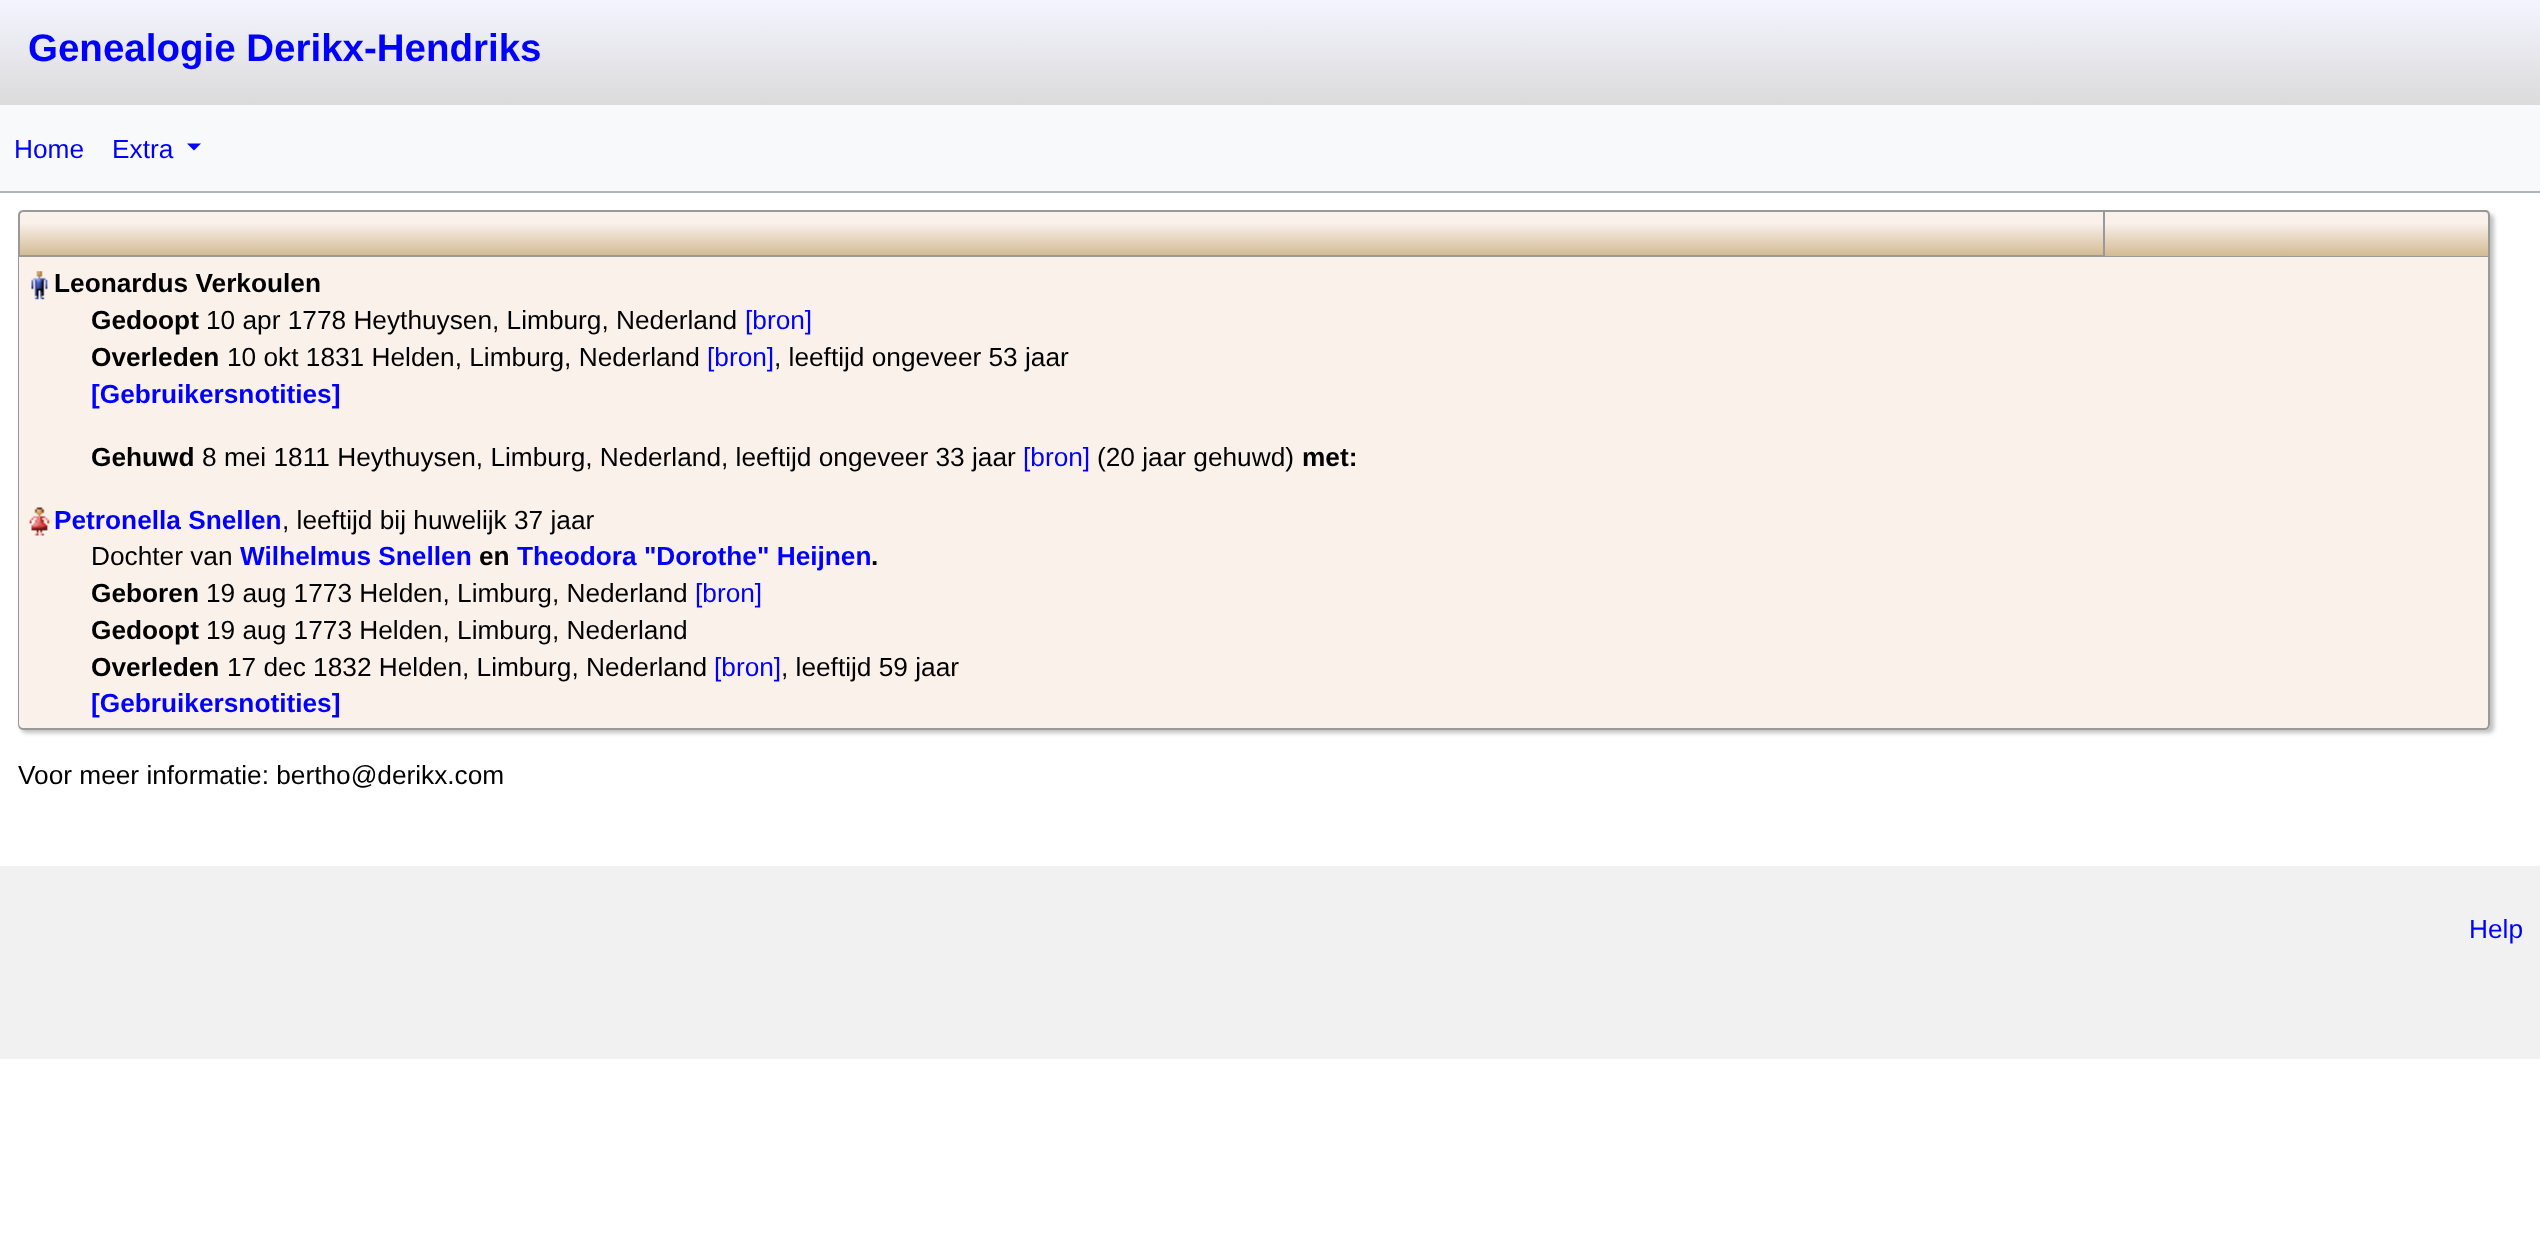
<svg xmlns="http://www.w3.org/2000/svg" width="2540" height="1247">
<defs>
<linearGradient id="g1" gradientUnits="userSpaceOnUse" x1="1271" y1="0" x2="1271" y2="105"><stop offset="0" stop-color="#f4f4ff"/><stop offset="1" stop-color="#dbdbdb"/></linearGradient>
<linearGradient id="g2" gradientUnits="userSpaceOnUse" x1="1254" y1="257" x2="1254" y2="210"><stop offset="0" stop-color="#d1b88f"/><stop offset="0.73" stop-color="#faf1eb"/></linearGradient>
</defs>
<rect width="100%" height="100%" fill="#fff"/>
<rect width="2540" height="105" fill="url(#g1)"/>
<text x="28" y="61" style="font-family:Liberation Sans;font-size:38.5px;font-weight:bold;fill:#00f">Genealogie Derikx-Hendriks</text>
<rect y="105" width="2540" height="86" fill="#f8f9fa"/>
<rect y="191" width="2540" height="2" fill="#adb5bd"/>
<text x="14" y="158" style="font-family:Liberation Sans;font-size:26.25px;fill:#00f">Home</text>
<text x="112" y="158" style="font-family:Liberation Sans;font-size:26.25px;fill:#00f">Extra</text>
<path d="M187 143.5h14l-7 7z" fill="#00f"/>
<rect x="21" y="214" width="2473" height="519" rx="5" fill="#c0c0c0" filter="blur(2px)"/>
<rect x="18" y="210" width="2472" height="520" rx="5" fill="#faf1eb"/>
<rect x="18" y="210" width="2472" height="46" fill="url(#g2)"/>
<path d="M23 211h2081v45h-2085v-41c0-2 2-4 4-4z" fill="none" stroke="#999" stroke-width="2"/>
<path d="M2105 210h380c3 0 5 2 5 5v42h-385zm0 2h380c2 0 3 1 3 3v41h-383z" fill="#999" fill-rule="evenodd"/>
<path d="M18 257h2472v467c0 3-2 6-5 6h-2462c-3 0-5-3-5-6zm1 0h2469v467c0 2-1 4-3 4h-2462c-2 0-4-2-4-4z" fill="#999" fill-rule="evenodd"/>
<image x="31" y="271" width="17" height="29" href="media/1.png"/>
<text x="54" y="292" style="font-family:Liberation Sans;font-size:26.25px;font-weight:bold;fill:#000">Leonardus Verkoulen</text>
<text x="91" y="329" style="font-family:Liberation Sans;font-size:26.25px;font-weight:bold;fill:#000">Gedoopt</text>
<text x="206" y="329" style="font-family:Liberation Sans;font-size:26.25px;fill:#000">10 apr 1778 Heythuysen, Limburg, Nederland</text>
<text x="745" y="329" style="font-family:Liberation Sans;font-size:26.25px;fill:#00f">[bron]</text>
<text x="91" y="366" style="font-family:Liberation Sans;font-size:26.25px;font-weight:bold;fill:#000">Overleden</text>
<text x="227" y="366" style="font-family:Liberation Sans;font-size:26.25px;fill:#000">10 okt 1831 Helden, Limburg, Nederland</text>
<text x="707" y="366" style="font-family:Liberation Sans;font-size:26.25px;fill:#00f">[bron]</text>
<text x="774" y="366" style="font-family:Liberation Sans;font-size:26.25px;fill:#000">, leeftijd ongeveer 53 jaar</text>
<text x="91" y="403" style="font-family:Liberation Sans;font-size:26.25px;font-weight:bold;fill:#00f">[Gebruikersnotities]</text>
<text x="91" y="466" style="font-family:Liberation Sans;font-size:26.25px;font-weight:bold;fill:#000">Gehuwd</text>
<text x="202" y="466" style="font-family:Liberation Sans;font-size:26.25px;fill:#000">8 mei 1811 Heythuysen, Limburg, Nederland, leeftijd ongeveer 33 jaar</text>
<text x="1023" y="466" style="font-family:Liberation Sans;font-size:26.25px;fill:#00f">[bron]</text>
<text x="1097" y="466" style="font-family:Liberation Sans;font-size:26.25px;fill:#000">(20 jaar gehuwd)</text>
<text x="1302" y="466" style="font-family:Liberation Sans;font-size:26.25px;font-weight:bold;fill:#000">met:</text>
<image x="29" y="507" width="21" height="29" href="media/2.png"/>
<text x="54" y="529" style="font-family:Liberation Sans;font-size:26.25px;font-weight:bold;fill:#00f">Petronella Snellen</text>
<text x="282" y="529" style="font-family:Liberation Sans;font-size:26.25px;fill:#000">, leeftijd bij huwelijk 37 jaar</text>
<text x="91" y="565" style="font-family:Liberation Sans;font-size:26.25px;fill:#000">Dochter van</text>
<text x="240" y="565" style="font-family:Liberation Sans;font-size:26.25px;font-weight:bold;fill:#00f">Wilhelmus Snellen</text>
<text x="479" y="565" style="font-family:Liberation Sans;font-size:26.25px;font-weight:bold;fill:#000">en</text>
<text x="517" y="565" style="font-family:Liberation Sans;font-size:26.25px;font-weight:bold;fill:#00f">Theodora "Dorothe" Heijnen</text>
<text x="871" y="565" style="font-family:Liberation Sans;font-size:26.25px;font-weight:bold;fill:#000">.</text>
<text x="91" y="602" style="font-family:Liberation Sans;font-size:26.25px;font-weight:bold;fill:#000">Geboren</text>
<text x="206" y="602" style="font-family:Liberation Sans;font-size:26.25px;fill:#000">19 aug 1773 Helden, Limburg, Nederland</text>
<text x="695" y="602" style="font-family:Liberation Sans;font-size:26.25px;fill:#00f">[bron]</text>
<text x="91" y="639" style="font-family:Liberation Sans;font-size:26.25px;font-weight:bold;fill:#000">Gedoopt</text>
<text x="206" y="639" style="font-family:Liberation Sans;font-size:26.25px;fill:#000">19 aug 1773 Helden, Limburg, Nederland</text>
<text x="91" y="676" style="font-family:Liberation Sans;font-size:26.25px;font-weight:bold;fill:#000">Overleden</text>
<text x="227" y="676" style="font-family:Liberation Sans;font-size:26.25px;fill:#000">17 dec 1832 Helden, Limburg, Nederland</text>
<text x="714" y="676" style="font-family:Liberation Sans;font-size:26.25px;fill:#00f">[bron]</text>
<text x="781" y="676" style="font-family:Liberation Sans;font-size:26.25px;fill:#000">, leeftijd 59 jaar</text>
<text x="91" y="712" style="font-family:Liberation Sans;font-size:26.25px;font-weight:bold;fill:#00f">[Gebruikersnotities]</text>
<text x="18" y="784" style="font-family:Liberation Sans;font-size:26.25px;fill:#000">Voor meer informatie: bertho@derikx.com</text>
<rect y="866" width="2540" height="193" fill="#f1f1f1"/>
<text x="2469" y="938" style="font-family:Liberation Sans;font-size:26.25px;fill:#00f">Help</text>
</svg>
